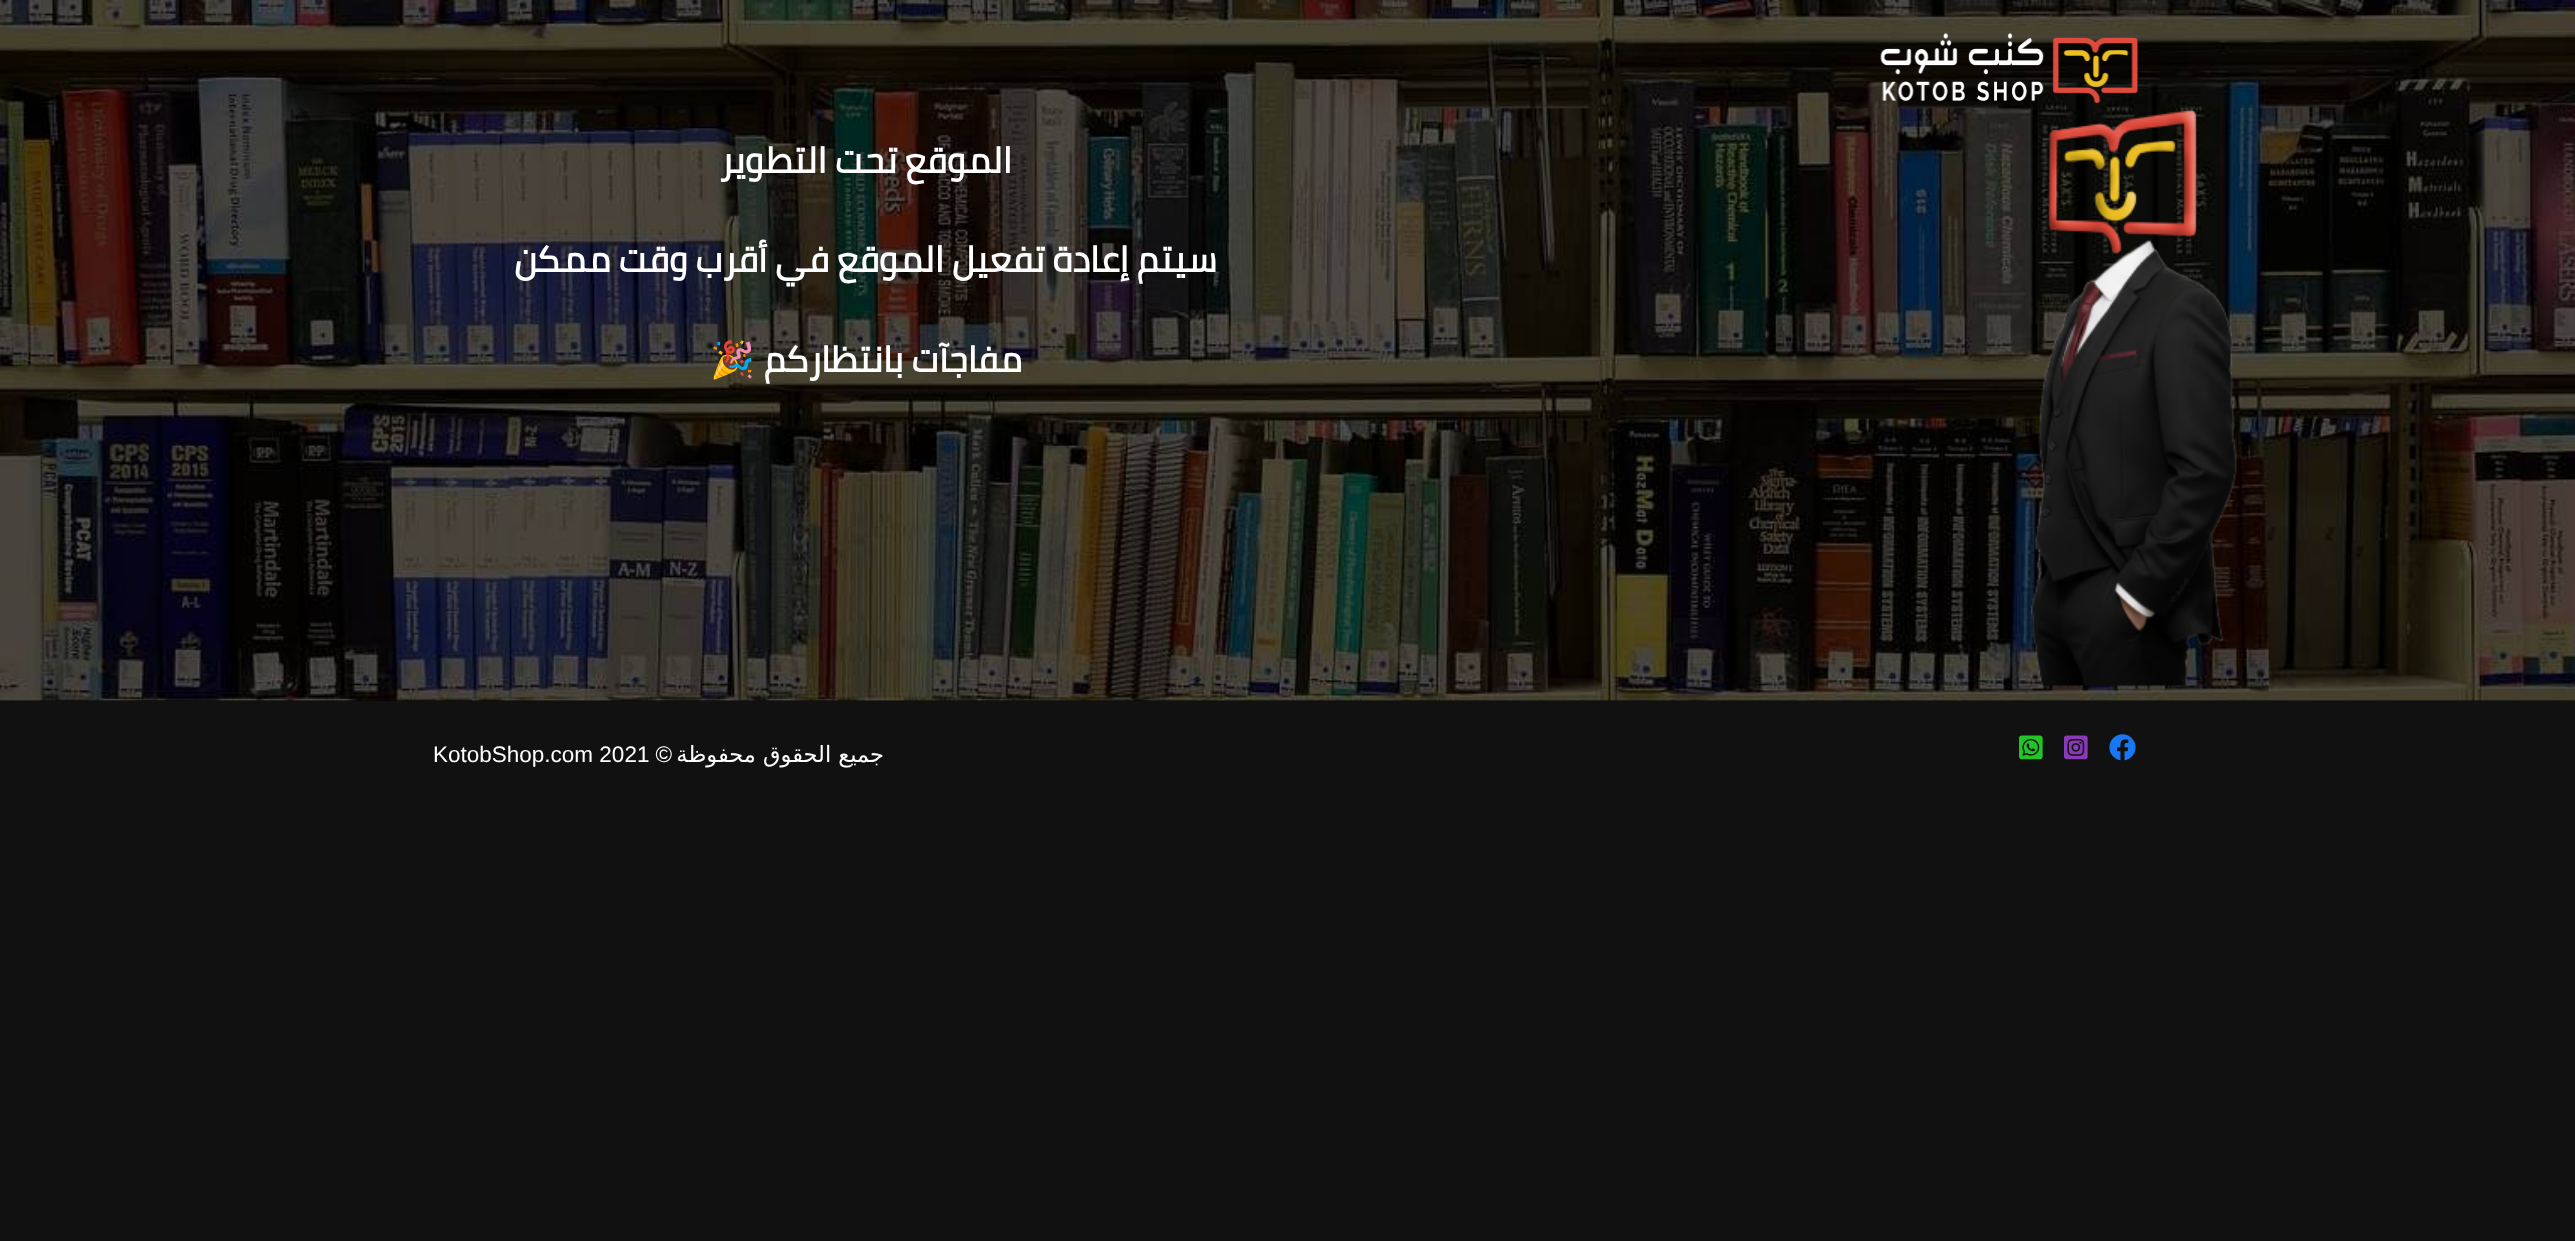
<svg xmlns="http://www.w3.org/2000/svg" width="2575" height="1241">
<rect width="100%" height="100%" fill="#111"/>
<rect y="700" width="2575" height="1" fill="#000"/>
<image x="0" y="0" width="2575" height="701" href="media/2.png"/>
<image x="1880" y="33" width="258" height="70" href="media/1.png"/>
<image x="2030" y="109" width="207" height="577" href="media/3.png"/>
<text x="1012" y="173" style="font-family:Cairo;font-size:36px;font-weight:bold;direction:rtl;fill:#fff">الموقع تحت التطوير</text>
<text x="1217" y="272" style="font-family:Cairo;font-size:36px;font-weight:bold;direction:rtl;fill:#fff">سيتم إعادة تفعيل الموقع في أقرب وقت ممكن</text>
<text x="1022" y="372" style="font-family:Cairo;font-size:36px;font-weight:bold;direction:rtl;fill:#fff">مفاجآت بانتظاركم</text>
<text x="755" y="372" style="font-family:Noto Color Emoji;font-size:36px;font-weight:bold;direction:rtl;fill:#fff">🎉</text>
<image x="2109" y="734" width="27" height="27" href="media/4.png"/>
<image x="2064" y="735" width="24" height="25" href="media/5.png"/>
<image x="2019" y="735" width="24" height="25" href="media/6.png"/>
<text x="884" y="762" style="font-family:DejaVu Sans;font-size:22.5px;direction:rtl;fill:#fff">جميع الحقوق محفوظة</text>
<text x="672" y="762" style="font-family:Liberation Sans;font-size:22.5px;direction:rtl;fill:#fff">©</text>
<text x="433" y="762" style="font-family:Liberation Sans;font-size:22.5px;fill:#fff">KotobShop.com 2021</text>
</svg>
